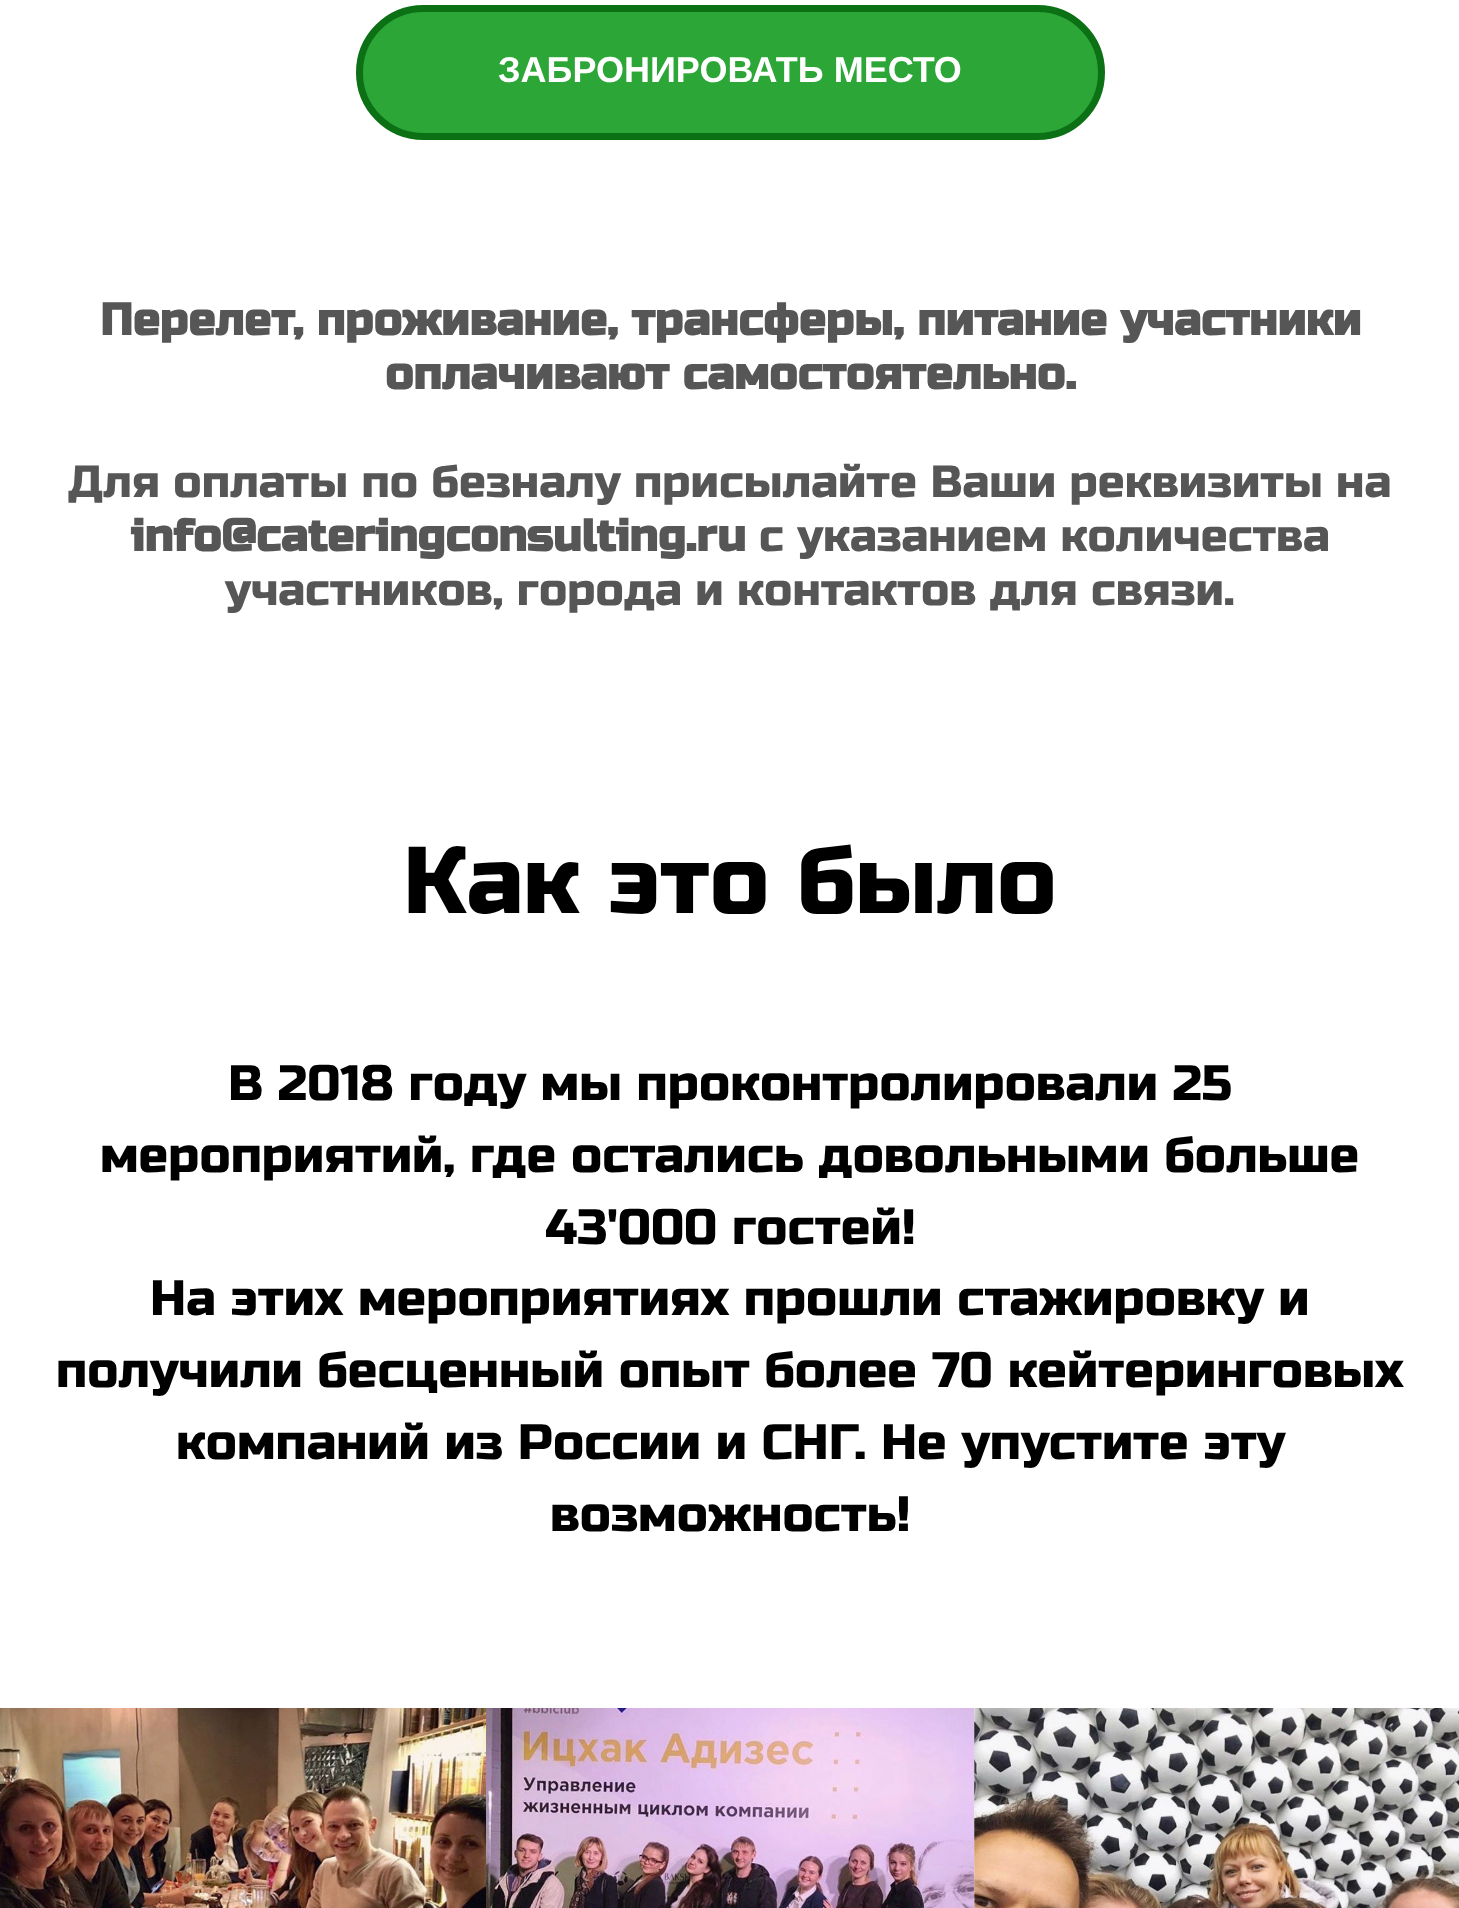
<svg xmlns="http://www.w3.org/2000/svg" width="1459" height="1908">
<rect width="100%" height="100%" fill="#fff"/>
<rect x="359.5" y="8.5" width="742" height="128" rx="64" fill="#2ba637" stroke="#0c7015" stroke-width="7"/>
<text x="498" y="82" style="font-family:Liberation Sans;font-size:36px;font-weight:bold;fill:#fff">ЗАБРОНИРОВАТЬ МЕСТО</text>
<text x="100" y="335" style="font-family:Russo One;font-size:45px;font-weight:bold;fill:#565656">Перелет, проживание, трансферы, питание участники</text>
<text x="385" y="389" style="font-family:Russo One;font-size:45px;font-weight:bold;fill:#565656">оплачивают самостоятельно.</text>
<text x="68" y="497" style="font-family:Russo One;font-size:45px;fill:#565656">Для оплаты по безналу присылайте Ваши реквизиты на</text>
<text x="130" y="551" style="font-family:Russo One;font-size:45px;font-weight:bold;fill:#565656">info@cateringconsulting.ru</text>
<text x="759" y="551" style="font-family:Russo One;font-size:45px;fill:#565656">с указанием количества</text>
<text x="225" y="605" style="font-family:Russo One;font-size:45px;fill:#565656">участников, города и контактов для связи.</text>
<text x="403" y="913" style="font-family:Russo One;font-size:94.5px;fill:#000">Как это было</text>
<text x="228" y="1100" style="font-family:Russo One;font-size:49.5px;fill:#000">В 2018 году мы проконтролировали 25</text>
<text x="100" y="1172" style="font-family:Russo One;font-size:49.5px;fill:#000">мероприятий, где остались довольными больше</text>
<text x="545" y="1244" style="font-family:Russo One;font-size:49.5px;fill:#000">43'000 гостей!</text>
<text x="150" y="1315" style="font-family:Russo One;font-size:49.5px;fill:#000">На этих мероприятиях прошли стажировку и</text>
<text x="56" y="1387" style="font-family:Russo One;font-size:49.5px;fill:#000">получили бесценный опыт более 70 кейтеринговых</text>
<text x="176" y="1459" style="font-family:Russo One;font-size:49.5px;fill:#000">компаний из России и СНГ. Не упустите эту</text>
<text x="550" y="1531" style="font-family:Russo One;font-size:49.5px;fill:#000">возможность!</text>
<image x="0" y="1708" width="486" height="200" href="media/1.png"/>
<image x="486" y="1708" width="489" height="200" href="media/2.png"/>
<image x="974" y="1708" width="485" height="200" href="media/3.png"/>
</svg>
